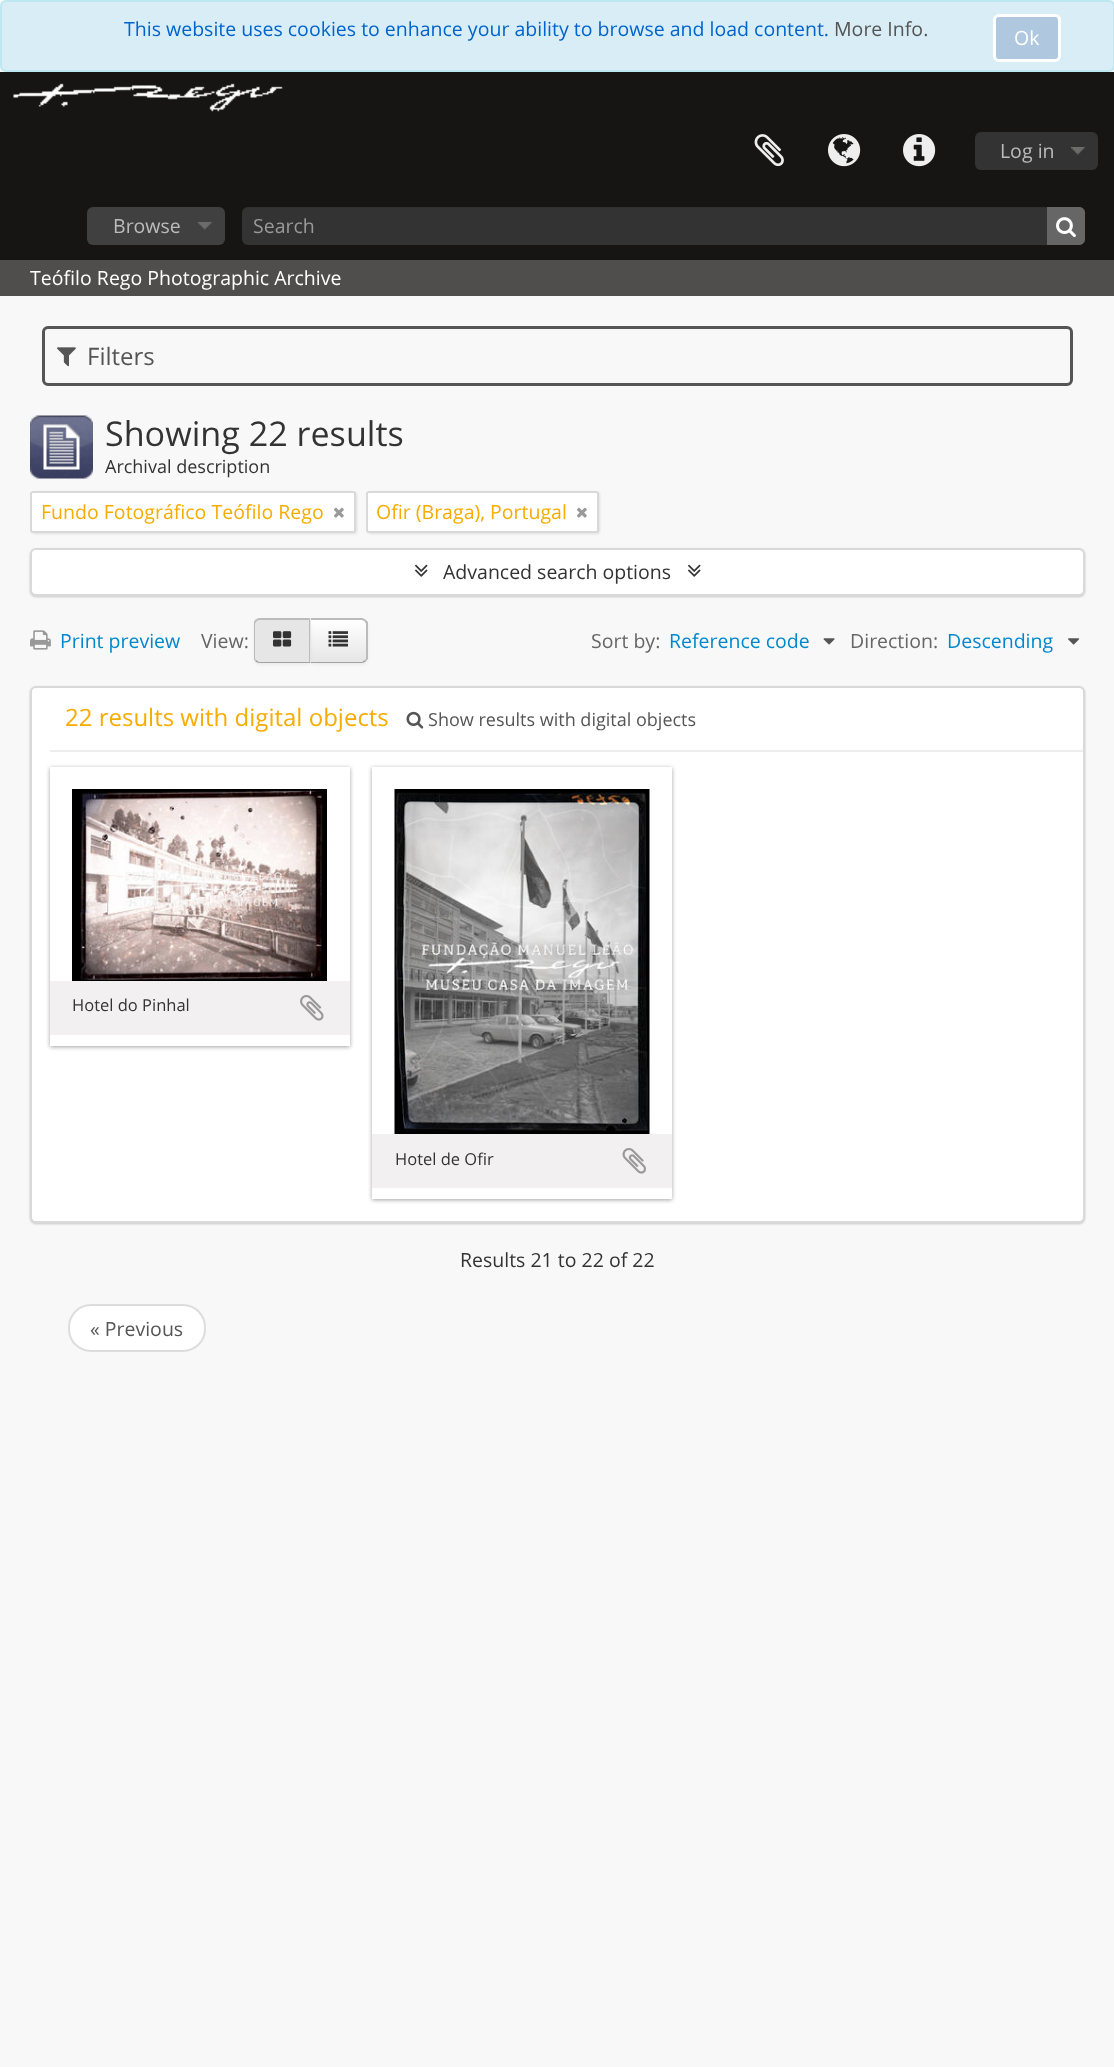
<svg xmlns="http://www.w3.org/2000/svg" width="1114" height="2067">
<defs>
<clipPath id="clip1"><path d="M309 618h53c3.5 0 6 2.5 6 6v33c0 3.5-2.5 6-6 6h-53z"/></clipPath>
<linearGradient id="g1" gradientUnits="userSpaceOnUse" x1="338" y1="620" x2="338" y2="662"><stop offset="0" stop-color="#fff"/><stop offset="1" stop-color="#e6e6e6"/></linearGradient>
</defs>
<rect width="100%" height="100%" fill="#f8f8f8"/>
<rect x="1" y="1" width="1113" height="70" rx="5" fill="#d9edf7" stroke="#bce8f1" stroke-width="2"/>
<text x="124" y="36" style="font-family:Open Sans;font-size:19.5px;fill:#0064cd">This website uses cookies to enhance your ability to browse and load content.</text>
<text x="834" y="36" style="font-family:Open Sans;font-size:19.5px;fill:#555">More Info.</text>
<rect x="994.5" y="15.5" width="65" height="45" rx="4.5" fill="#afc8df" stroke="#fff" stroke-width="3"/>
<text x="1014" y="45" style="font-family:Open Sans;font-size:19.5px;fill:#fff">Ok</text>
<rect y="72" width="1114" height="188" fill="#161514"/>
<image x="13" y="83" width="270" height="29" href="media/1.png"/>
<image x="754" y="134" width="30" height="33" href="media/2.png"/>
<image x="828" y="134" width="33" height="33" href="media/3.png"/>
<image x="903" y="134" width="33" height="33" href="media/4.png"/>
<rect x="975" y="132" width="123" height="38" rx="6" fill="#333"/>
<image x="1071" y="147" width="14" height="8" href="media/5.png"/>
<text x="1000" y="158" style="font-family:Open Sans;font-size:19.5px;fill:#bbb">Log in</text>
<rect x="87" y="207" width="138" height="38" rx="6" fill="#404040"/>
<image x="198" y="222" width="14" height="8" href="media/6.png"/>
<text x="113" y="233" style="font-family:Open Sans;font-size:19.5px;fill:#bbb">Browse</text>
<rect x="242" y="207" width="843" height="38" rx="6" fill="#333"/>
<path d="M248 208h830c4 0 6 3 6 6v26c0 1 0 2-1 3c1-1 2-2 2-4v-26c0-3-3-6-6-6h-831c-3 0-6 3-6 6v1c0-3 2-6 6-6z" fill="#00000012"/>
<text x="253" y="233" style="font-family:Open Sans;font-size:19.5px;fill:#999">Search</text>
<path d="M1047 207h32c3.5 0 6 2.5 6 6v26c0 3.5-2.5 6-6 6h-32z" fill="#666"/>
<image x="1056" y="217" width="20" height="20" href="media/7.png"/>
<rect y="260" width="1114" height="36" fill="#4f4e4d"/>
<text x="30" y="285" style="font-family:Open Sans;font-size:19.5px;fill:#fff">Teófilo Rego Photographic Archive</text>
<rect x="43.5" y="327.5" width="1028" height="57" rx="4.5" fill="none" stroke="#555" stroke-width="3"/>
<image x="57" y="347" width="19" height="20" href="media/8.png"/>
<text x="87" y="365" style="font-family:Open Sans;font-size:24px;fill:#555">Filters</text>
<image x="30" y="415" width="63" height="64" href="media/9.png"/>
<text x="105" y="446" style="font-family:Open Sans;font-size:34.1px;fill:#333">Showing 22 results</text>
<text x="105" y="473" style="font-family:Open Sans;font-size:18px;fill:#333">Archival description</text>
<rect x="32" y="492" width="325" height="42" rx="3" fill="#0000001a" filter="blur(1px)"/>
<rect x="31" y="492" width="324" height="40" rx="2" fill="#fff" stroke="#d9d9d9" stroke-width="2"/>
<text x="41" y="519" style="font-family:Open Sans;font-size:19.5px;fill:#f6ac00">Fundo Fotográfico Teófilo Rego</text>
<image x="334" y="507" width="10" height="11" href="media/10.png"/>
<rect x="368" y="492" width="232" height="42" rx="3" fill="#0000001a" filter="blur(1px)"/>
<rect x="367" y="492" width="231" height="40" rx="2" fill="#fff" stroke="#d9d9d9" stroke-width="2"/>
<text x="376" y="519" style="font-family:Open Sans;font-size:19.5px;fill:#f6ac00">Ofir (Braga), Portugal</text>
<image x="577" y="507" width="10" height="11" href="media/10.png"/>
<rect x="30" y="549" width="1055" height="48" rx="6" fill="#00000033" filter="blur(1px)"/>
<rect x="31" y="549" width="1053" height="46" rx="5" fill="#fff" stroke="#d9d9d9" stroke-width="2"/>
<image x="415" y="564" width="13" height="13" href="media/11.png"/>
<text x="443" y="579" style="font-family:Open Sans;font-size:19.5px;fill:#333">Advanced search options</text>
<image x="688" y="564" width="13" height="13" href="media/11.png"/>
<image x="30" y="630" width="21" height="20" href="media/12.png"/>
<text x="60" y="648" style="font-family:Open Sans;font-size:19.5px;fill:#08c">Print preview</text>
<text x="201" y="648" style="font-family:Open Sans;font-size:19.5px;fill:#666">View:</text>
<rect x="309" y="620" width="59" height="45" rx="6" fill="#0000000d" filter="blur(1.5px)"/>
<path d="M309 618h53c3.5 0 6 2.5 6 6v33c0 3.5-2.5 6-6 6h-53z" fill="#f5f5f5"/>
<g clip-path="url(#clip1)">
<rect x="311" y="620" width="57" height="42" fill="url(#g1)"/>
</g>
<path d="M309 618l2 2h51l2 1l2-1c-1-1-3-2-4-2z" fill="#bbb"/>
<path d="M368 659l-2 2l-1-1c1-1 1-2 1-3v-33c0-1-1-2-2-3l2-1l2 2z" fill="#bbb"/>
<path d="M362 663c1 0 3-1 4-2l-1-1l-3 2h-52l-1 1z" fill="#a2a2a2"/>
<rect x="254" y="620" width="57" height="45" rx="6" fill="#0000000d" filter="blur(1.5px)"/>
<path d="M260 618h51v45h-51c-3.5 0-6-2.5-6-6v-33c0-3.5 2.5-6 6-6z" fill="#e6e6e6"/>
<path d="M260 618c-2 0-4 1-5 2l2 1c0-1 2-1 3-1h48l2-2z" fill="#bbb"/>
<path d="M310 618v44h-1v-42h-1z" fill="#bbb"/>
<path d="M260 663h50v-1h-1h-50l-3-2l-1 1c1 1 3 2 5 2z" fill="#a2a2a2"/>
<path d="M255 620c-1 1-1 3-1 4v33c0 1 0 3 1 4l1-1c-1-1-1-2-1-3v-33c0-1 1-2 2-3z" fill="#bbb"/>
<image x="273" y="631" width="19" height="16" href="media/13.png"/>
<image x="328" y="631" width="20" height="16" href="media/14.png"/>
<text x="591" y="648" style="font-family:Open Sans;font-size:19.5px;fill:#666">Sort by:</text>
<text x="669" y="648" style="font-family:Open Sans;font-size:19.5px;fill:#08c">Reference code</text>
<image x="823" y="638" width="12" height="7" href="media/15.png"/>
<text x="850" y="648" style="font-family:Open Sans;font-size:19.5px;fill:#666">Direction:</text>
<text x="947" y="648" style="font-family:Open Sans;font-size:19.5px;fill:#08c">Descending</text>
<image x="1068" y="638" width="12" height="7" href="media/16.png"/>
<rect x="30" y="687" width="1055" height="537" rx="6" fill="#00000033" filter="blur(1px)"/>
<rect x="31" y="687" width="1053" height="535" rx="5" fill="#fff" stroke="#d9d9d9" stroke-width="2"/>
<rect x="50" y="750" width="1033" height="2" fill="#eee"/>
<text x="65" y="726" style="font-family:Open Sans;font-size:24px;fill:#f6ac00">22 results with digital objects</text>
<image x="406" y="711" width="18" height="18" href="media/17.png"/>
<text x="428" y="726" style="font-family:Open Sans;font-size:18px;fill:#555">Show results with digital objects</text>
<rect x="50" y="768" width="300" height="279" fill="#19191966" filter="blur(2px)"/>
<rect x="50" y="767" width="300" height="279" fill="#fff"/>
<image x="72" y="789" width="255" height="192" href="media/18.png"/>
<rect x="50" y="981" width="300" height="54" fill="#f2f0f0"/>
<text x="72" y="1011" style="font-family:Open Sans;font-size:16.5px;fill:#333">Hotel do Pinhal</text>
<image x="300" y="995" width="24" height="26" href="media/19.png"/>
<rect x="372" y="768" width="300" height="432" fill="#19191966" filter="blur(2px)"/>
<rect x="372" y="767" width="300" height="432" fill="#fff"/>
<image x="394" y="789" width="256" height="345" href="media/20.png"/>
<rect x="372" y="1134" width="300" height="54" fill="#f2f0f0"/>
<text x="395" y="1165" style="font-family:Open Sans;font-size:16.5px;fill:#333">Hotel de Ofir</text>
<image x="622" y="1148" width="24" height="26" href="media/21.png"/>
<text x="460" y="1267" style="font-family:Open Sans;font-size:19.5px;fill:#333">Results 21 to 22 of 22</text>
<rect x="69" y="1305" width="136" height="46" rx="22" fill="#fff" stroke="#ddd" stroke-width="2"/>
<text x="90" y="1336" style="font-family:Open Sans;font-size:19.5px;fill:#555">« Previous</text>
</svg>
